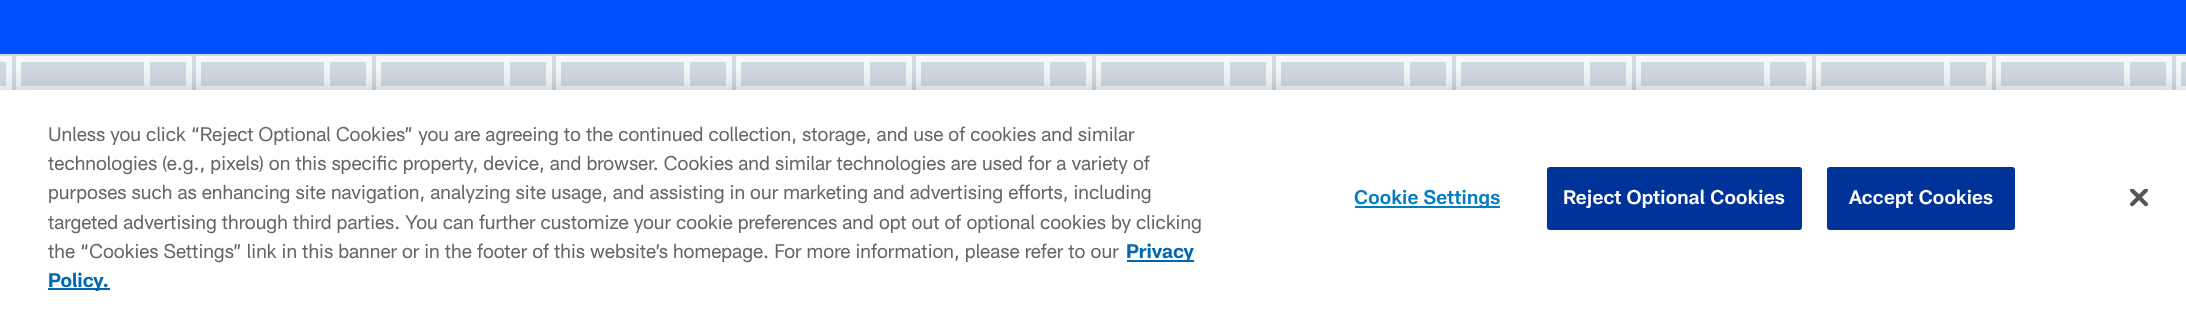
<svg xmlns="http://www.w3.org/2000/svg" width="2186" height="310">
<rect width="100%" height="100%" fill="#f4f8f8"/>
<rect width="2186" height="54" fill="#004fff"/>
<rect x="-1" y="55" width="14" height="93" fill="none" stroke="#d2dae1" stroke-width="2"/>
<rect y="62" width="6" height="24" fill="#d2dae1"/>
<rect x="15" y="55" width="178" height="93" fill="none" stroke="#d2dae1" stroke-width="2"/>
<rect x="21" y="62" width="123" height="24" fill="#d2dae1"/>
<rect x="150" y="62" width="36" height="24" fill="#d2dae1"/>
<rect x="195" y="55" width="178" height="93" fill="none" stroke="#d2dae1" stroke-width="2"/>
<rect x="201" y="62" width="123" height="24" fill="#d2dae1"/>
<rect x="330" y="62" width="36" height="24" fill="#d2dae1"/>
<rect x="375" y="55" width="178" height="93" fill="none" stroke="#d2dae1" stroke-width="2"/>
<rect x="381" y="62" width="123" height="24" fill="#d2dae1"/>
<rect x="510" y="62" width="36" height="24" fill="#d2dae1"/>
<rect x="555" y="55" width="178" height="93" fill="none" stroke="#d2dae1" stroke-width="2"/>
<rect x="561" y="62" width="123" height="24" fill="#d2dae1"/>
<rect x="690" y="62" width="36" height="24" fill="#d2dae1"/>
<rect x="735" y="55" width="178" height="93" fill="none" stroke="#d2dae1" stroke-width="2"/>
<rect x="741" y="62" width="123" height="24" fill="#d2dae1"/>
<rect x="870" y="62" width="36" height="24" fill="#d2dae1"/>
<rect x="915" y="55" width="178" height="93" fill="none" stroke="#d2dae1" stroke-width="2"/>
<rect x="921" y="62" width="123" height="24" fill="#d2dae1"/>
<rect x="1050" y="62" width="36" height="24" fill="#d2dae1"/>
<rect x="1095" y="55" width="178" height="93" fill="none" stroke="#d2dae1" stroke-width="2"/>
<rect x="1101" y="62" width="123" height="24" fill="#d2dae1"/>
<rect x="1230" y="62" width="36" height="24" fill="#d2dae1"/>
<rect x="1275" y="55" width="178" height="93" fill="none" stroke="#d2dae1" stroke-width="2"/>
<rect x="1281" y="62" width="123" height="24" fill="#d2dae1"/>
<rect x="1410" y="62" width="36" height="24" fill="#d2dae1"/>
<rect x="1455" y="55" width="178" height="93" fill="none" stroke="#d2dae1" stroke-width="2"/>
<rect x="1461" y="62" width="123" height="24" fill="#d2dae1"/>
<rect x="1590" y="62" width="36" height="24" fill="#d2dae1"/>
<rect x="1635" y="55" width="178" height="93" fill="none" stroke="#d2dae1" stroke-width="2"/>
<rect x="1641" y="62" width="123" height="24" fill="#d2dae1"/>
<rect x="1770" y="62" width="36" height="24" fill="#d2dae1"/>
<rect x="1815" y="55" width="178" height="93" fill="none" stroke="#d2dae1" stroke-width="2"/>
<rect x="1821" y="62" width="123" height="24" fill="#d2dae1"/>
<rect x="1950" y="62" width="36" height="24" fill="#d2dae1"/>
<rect x="1995" y="55" width="178" height="93" fill="none" stroke="#d2dae1" stroke-width="2"/>
<rect x="2001" y="62" width="123" height="24" fill="#d2dae1"/>
<rect x="2130" y="62" width="36" height="24" fill="#d2dae1"/>
<rect x="2175" y="55" width="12" height="93" fill="none" stroke="#d2dae1" stroke-width="2"/>
<rect x="2181" y="62" width="5" height="24" fill="#d2dae1"/>
<rect y="90" width="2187" height="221" fill="#00000033" filter="blur(13.5px)"/>
<rect y="90" width="2186" height="220" fill="#fff"/>
<text x="48" y="141" style="font-family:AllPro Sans;font-size:19.5px;fill:#666">Unless you click “Reject Optional Cookies” you are agreeing to the continued collection, storage, and use of cookies and similar</text>
<text x="48" y="170" style="font-family:AllPro Sans;font-size:19.5px;fill:#666">technologies (e.g., pixels) on this specific property, device, and browser. Cookies and similar technologies are used for a variety of</text>
<text x="48" y="199" style="font-family:AllPro Sans;font-size:19.5px;fill:#666">purposes such as enhancing site navigation, analyzing site usage, and assisting in our marketing and advertising efforts, including</text>
<text x="48" y="229" style="font-family:AllPro Sans;font-size:19.5px;fill:#666">targeted advertising through third parties. You can further customize your cookie preferences and opt out of optional cookies by clicking</text>
<text x="48" y="258" style="font-family:AllPro Sans;font-size:19.5px;fill:#666">the “Cookies Settings” link in this banner or in the footer of this website’s homepage. For more information, please refer to our</text>
<rect x="1127" y="260" width="67" height="2" fill="#0067b1"/>
<text x="1126" y="258" style="font-family:AllPro Sans;font-size:19.5px;font-weight:bold;fill:#0067b1">Privacy</text>
<rect x="48" y="288" width="62" height="2" fill="#0067b1"/>
<text x="48" y="287" style="font-family:AllPro Sans;font-size:19.5px;font-weight:bold;fill:#0067b1">Policy.</text>
<rect x="1355" y="206" width="145" height="2" fill="#007dc3"/>
<text x="1354" y="204" style="font-family:AllPro Sans;font-size:19.5px;font-weight:600;letter-spacing:0.2px;fill:#007dc3">Cookie Settings</text>
<rect x="1548" y="168" width="253" height="61" rx="2" fill="#039" stroke="#039" stroke-width="2"/>
<text x="1563" y="204" style="font-family:AllPro Sans;font-size:19.5px;font-weight:600;letter-spacing:0.2px;fill:#fff">Reject Optional Cookies</text>
<rect x="1828" y="168" width="186" height="61" rx="2" fill="#039" stroke="#039" stroke-width="2"/>
<text x="1849" y="204" style="font-family:AllPro Sans;font-size:19.5px;font-weight:600;letter-spacing:0.2px;fill:#fff">Accept Cookies</text>
<image x="2130" y="189" width="18" height="18" href="media/1.png"/>
</svg>
